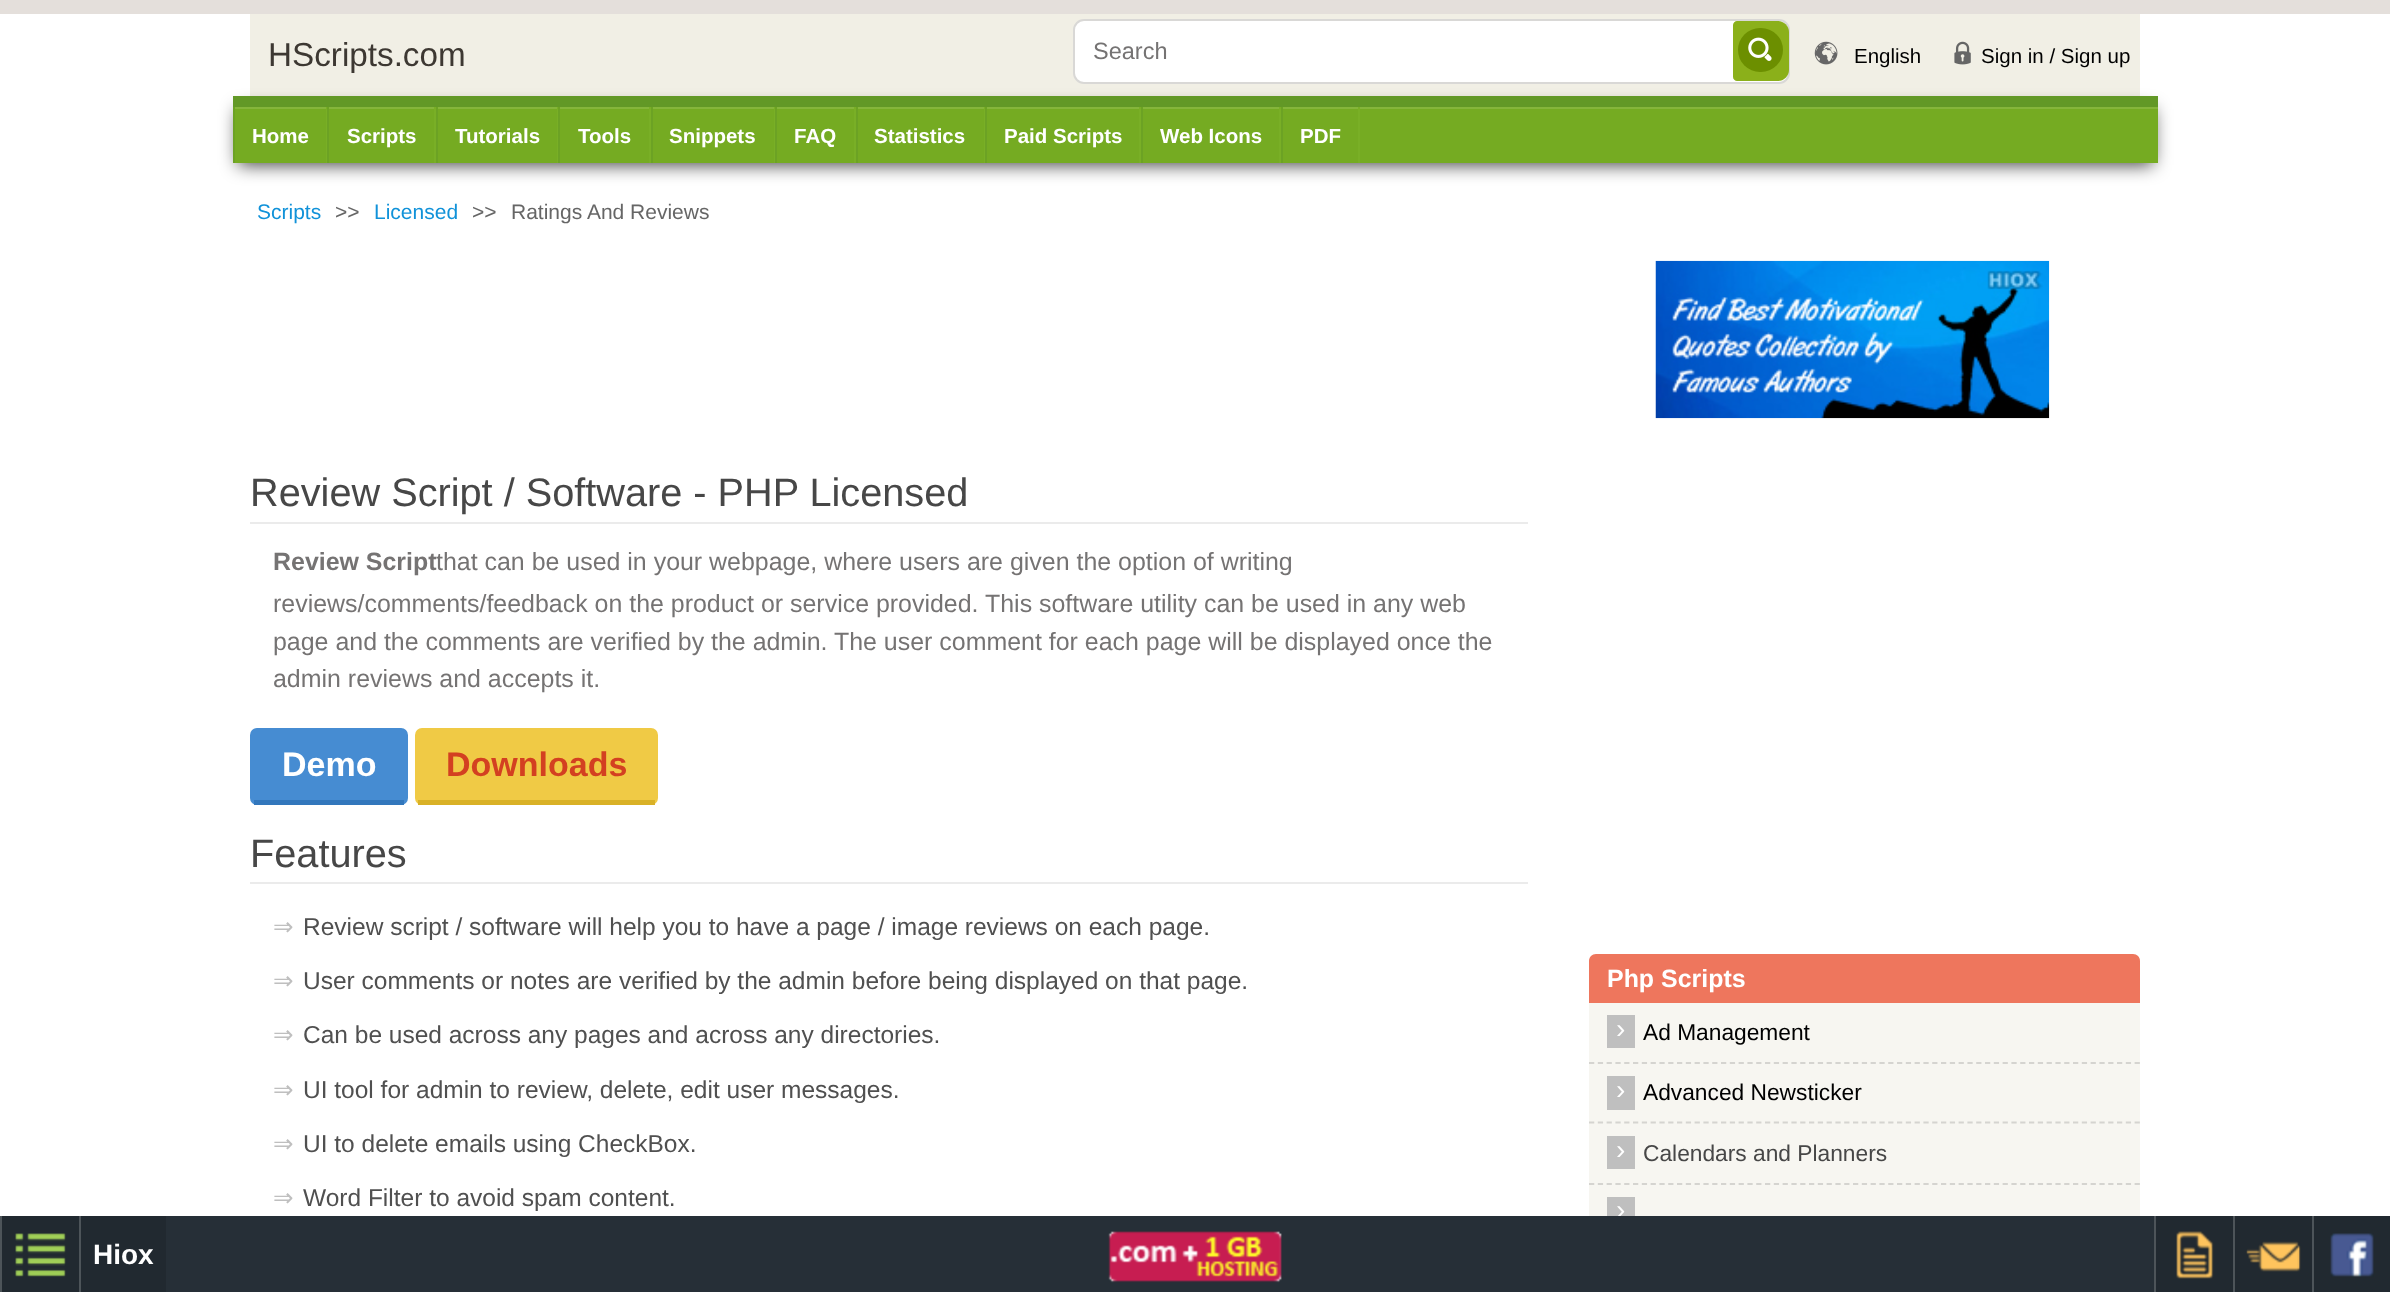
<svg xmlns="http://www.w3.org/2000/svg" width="2390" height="1292">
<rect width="100%" height="100%" fill="#fff"/>
<rect width="2390" height="14" fill="#e4dfdb"/>
<rect x="250" y="14" width="1890" height="82" fill="#f1efe5"/>
<text x="268" y="66" style="font-family:Liberation Sans;font-size:33.25px;fill:#3d3832">HScripts.com</text>
<rect x="238" y="109" width="1915" height="56" fill="#000000bf" filter="blur(9px)"/>
<rect x="1074" y="20" width="715" height="63" rx="10" fill="#fff" stroke="#d9d8d6" stroke-width="2"/>
<text x="1093" y="59" style="font-family:Liberation Sans;font-size:23.5px;fill:#757373">Search</text>
<path d="M1737 21h41c6 0 11 5 11 11v38c0 6-5 11-11 11h-41c-2 0-4-2-4-4v-52c0-2 2-4 4-4z" fill="#8bb01a"/>
<rect x="1738" y="28" width="45" height="44" rx="22" fill="#6c8f00"/>
<image x="1748" y="37" width="24" height="24" href="media/1.png"/>
<image x="1814" y="41" width="24" height="24" href="media/2.png"/>
<text x="1854" y="63" style="font-family:Liberation Sans;font-size:20.5px;fill:#000">English</text>
<image x="1954" y="41" width="17" height="24" href="media/3.png"/>
<text x="1981" y="63" style="font-family:Liberation Sans;font-size:20.5px;fill:#000">Sign in / Sign up</text>
<rect x="233" y="107" width="1925" height="2" fill="#85b53b"/>
<rect x="235" y="109" width="1923" height="54" fill="#75ab22"/>
<rect x="233" y="96" width="1925" height="11" fill="#629826"/>
<rect x="326" y="107" width="1" height="56" fill="#79af26"/>
<rect x="233" y="107" width="2" height="56" fill="#6ca224"/>
<text x="252" y="143" style="font-family:Liberation Sans;font-size:20.5px;font-weight:bold;fill:#fff">Home</text>
<rect x="434" y="107" width="2" height="56" fill="#79af26"/>
<rect x="327" y="107" width="2" height="56" fill="#6ca224"/>
<text x="347" y="143" style="font-family:Liberation Sans;font-size:20.5px;font-weight:bold;fill:#fff">Scripts</text>
<rect x="557" y="107" width="1" height="56" fill="#79af26"/>
<rect x="436" y="107" width="2" height="56" fill="#6ca224"/>
<text x="455" y="143" style="font-family:Liberation Sans;font-size:20.5px;font-weight:bold;fill:#fff">Tutorials</text>
<rect x="649" y="107" width="2" height="56" fill="#79af26"/>
<rect x="558" y="107" width="2" height="56" fill="#6ca224"/>
<text x="578" y="143" style="font-family:Liberation Sans;font-size:20.5px;font-weight:bold;fill:#fff">Tools</text>
<rect x="774" y="107" width="1" height="56" fill="#79af26"/>
<rect x="651" y="107" width="2" height="56" fill="#6ca224"/>
<text x="669" y="143" style="font-family:Liberation Sans;font-size:20.5px;font-weight:bold;fill:#fff">Snippets</text>
<rect x="854" y="107" width="2" height="56" fill="#79af26"/>
<rect x="775" y="107" width="2" height="56" fill="#6ca224"/>
<text x="794" y="143" style="font-family:Liberation Sans;font-size:20.5px;font-weight:bold;fill:#fff">FAQ</text>
<rect x="984" y="107" width="1" height="56" fill="#79af26"/>
<rect x="856" y="107" width="2" height="56" fill="#6ca224"/>
<text x="874" y="143" style="font-family:Liberation Sans;font-size:20.5px;font-weight:bold;fill:#fff">Statistics</text>
<rect x="1139" y="107" width="2" height="56" fill="#79af26"/>
<rect x="985" y="107" width="2" height="56" fill="#6ca224"/>
<text x="1004" y="143" style="font-family:Liberation Sans;font-size:20.5px;font-weight:bold;fill:#fff">Paid Scripts</text>
<rect x="1279" y="107" width="2" height="56" fill="#79af26"/>
<rect x="1141" y="107" width="2" height="56" fill="#6ca224"/>
<text x="1160" y="143" style="font-family:Liberation Sans;font-size:20.5px;font-weight:bold;fill:#fff">Web Icons</text>
<rect x="1358" y="107" width="2" height="56" fill="#79af26"/>
<rect x="1281" y="107" width="2" height="56" fill="#6ca224"/>
<text x="1300" y="143" style="font-family:Liberation Sans;font-size:20.5px;font-weight:bold;fill:#fff">PDF</text>
<text x="257" y="219" style="font-family:Liberation Sans;font-size:21px;fill:#1192d9">Scripts</text>
<text x="335" y="219" style="font-family:Liberation Sans;font-size:21px;fill:#666">&gt;&gt;</text>
<text x="374" y="219" style="font-family:Liberation Sans;font-size:21px;fill:#1192d9">Licensed</text>
<text x="472" y="219" style="font-family:Liberation Sans;font-size:21px;fill:#666">&gt;&gt;</text>
<text x="511" y="219" style="font-family:Liberation Sans;font-size:21px;fill:#666">Ratings And Reviews</text>
<image x="1655" y="260" width="395" height="159" href="media/4.png"/>
<rect x="250" y="522" width="1278" height="2" fill="#ebebeb"/>
<text x="250" y="506" style="font-family:Liberation Sans;font-size:39.7px;fill:#474747">Review Script / Software - PHP Licensed</text>
<text x="273" y="570" style="font-family:Liberation Sans;font-size:24.95px;font-weight:bold;fill:#757373">Review Script</text>
<text x="436" y="570" style="font-family:Liberation Sans;font-size:24.95px;fill:#757373">that can be used in your webpage, where users are given the option of writing</text>
<text x="273" y="612" style="font-family:Liberation Sans;font-size:24.95px;fill:#757373">reviews/comments/feedback on the product or service provided. This software utility can be used in any web</text>
<text x="273" y="650" style="font-family:Liberation Sans;font-size:24.95px;fill:#757373">page and the comments are verified by the admin. The user comment for each page will be displayed once the</text>
<text x="273" y="687" style="font-family:Liberation Sans;font-size:24.95px;fill:#757373">admin reviews and accepts it.</text>
<rect x="250" y="728" width="158" height="77" rx="7" fill="#468cd2"/>
<rect x="254" y="800" width="150" height="5" fill="#3277bc"/>
<text x="282" y="776" style="font-family:Liberation Sans;font-size:34px;font-weight:bold;fill:#fff">Demo</text>
<rect x="415" y="728" width="243" height="77" rx="7" fill="#f0ca45"/>
<rect x="418" y="800" width="237" height="5" fill="#d9b127"/>
<text x="446" y="776" style="font-family:Liberation Sans;font-size:34px;font-weight:bold;fill:#d34021">Downloads</text>
<rect x="250" y="882" width="1278" height="2" fill="#ebebeb"/>
<text x="250" y="867" style="font-family:Liberation Sans;font-size:39.7px;fill:#474747">Features</text>
<text x="273" y="935" style="font-family:DejaVu Sans;font-size:24.5px;fill:#bfbfbf">⇒</text>
<text x="303" y="935" style="font-family:Liberation Sans;font-size:24.5px;fill:#505050">Review script / software will help you to have a page / image reviews on each page.</text>
<text x="273" y="989" style="font-family:DejaVu Sans;font-size:24.5px;fill:#bfbfbf">⇒</text>
<text x="303" y="989" style="font-family:Liberation Sans;font-size:24.5px;fill:#505050">User comments or notes are verified by the admin before being displayed on that page.</text>
<text x="273" y="1043" style="font-family:DejaVu Sans;font-size:24.5px;fill:#bfbfbf">⇒</text>
<text x="303" y="1043" style="font-family:Liberation Sans;font-size:24.5px;fill:#505050">Can be used across any pages and across any directories.</text>
<text x="273" y="1098" style="font-family:DejaVu Sans;font-size:24.5px;fill:#bfbfbf">⇒</text>
<text x="303" y="1098" style="font-family:Liberation Sans;font-size:24.5px;fill:#505050">UI tool for admin to review, delete, edit user messages.</text>
<text x="273" y="1152" style="font-family:DejaVu Sans;font-size:24.5px;fill:#bfbfbf">⇒</text>
<text x="303" y="1152" style="font-family:Liberation Sans;font-size:24.5px;fill:#505050">UI to delete emails using CheckBox.</text>
<text x="273" y="1206" style="font-family:DejaVu Sans;font-size:24.5px;fill:#bfbfbf">⇒</text>
<text x="303" y="1206" style="font-family:Liberation Sans;font-size:24.5px;fill:#505050">Word Filter to avoid spam content.</text>
<path d="M1596 954h537c4 0 7 3 7 7v42h-551v-42c0-4 3-7 7-7z" fill="#ee765d"/>
<text x="1607" y="987" style="font-family:Liberation Sans;font-size:24.95px;font-weight:bold;fill:#fff">Php Scripts</text>
<rect x="1589" y="1003" width="551" height="213" fill="#f7f6f1"/>
<path d="M1589 1063h551" fill="none" stroke="#d5d4d0" stroke-width="1.8" stroke-dasharray="5.25 3.55"/>
<rect x="1607" y="1015" width="28" height="33" fill="#bfbfbf"/>
<text x="1616" y="1038" style="font-family:Liberation Sans;font-size:28px;fill:#fff">›</text>
<text x="1643" y="1040" style="font-family:Liberation Sans;font-size:22.75px;fill:#000">Ad Management</text>
<path d="M1589 1122.5h551" fill="none" stroke="#d5d4d0" stroke-width="1.8" stroke-dasharray="5.25 3.55"/>
<rect x="1607" y="1076" width="28" height="34" fill="#bfbfbf"/>
<text x="1616" y="1099" style="font-family:Liberation Sans;font-size:28px;fill:#fff">›</text>
<text x="1643" y="1100" style="font-family:Liberation Sans;font-size:22.75px;fill:#000">Advanced Newsticker</text>
<path d="M1589 1184h551" fill="none" stroke="#d5d4d0" stroke-width="1.8" stroke-dasharray="5.25 3.55"/>
<rect x="1607" y="1136" width="28" height="33" fill="#bfbfbf"/>
<text x="1616" y="1159" style="font-family:Liberation Sans;font-size:28px;fill:#fff">›</text>
<text x="1643" y="1161" style="font-family:Liberation Sans;font-size:22.75px;fill:#474747">Calendars and Planners</text>
<rect x="1607" y="1197" width="28" height="19" fill="#bfbfbf"/>
<text x="1616" y="1219" style="font-family:Liberation Sans;font-size:28px;fill:#fff">›</text>
<rect x="166" y="1216" width="1988" height="76" fill="#262f37"/>
<rect x="2" y="1216" width="77" height="76" fill="#212930"/>
<rect y="1216" width="2" height="76" fill="#4d5459"/>
<image x="15" y="1233" width="51" height="44" href="media/5.png"/>
<rect x="81" y="1216" width="85" height="76" fill="#212930"/>
<rect x="79" y="1216" width="2" height="76" fill="#4d5459"/>
<text x="93" y="1264" style="font-family:Liberation Sans;font-size:28px;font-weight:bold;fill:#fff">Hiox</text>
<image x="1108" y="1231" width="174" height="52" href="media/6.png"/>
<rect x="2156" y="1216" width="77" height="76" fill="#212930"/>
<rect x="2154" y="1216" width="2" height="76" fill="#4d5459"/>
<image x="2176" y="1231" width="38" height="48" href="media/7.png"/>
<rect x="2235" y="1216" width="77" height="76" fill="#212930"/>
<rect x="2233" y="1216" width="2" height="76" fill="#4d5459"/>
<image x="2246" y="1241" width="55" height="31" href="media/8.png"/>
<rect x="2314" y="1216" width="76" height="76" fill="#212930"/>
<rect x="2312" y="1216" width="2" height="76" fill="#4d5459"/>
<image x="2330" y="1233" width="44" height="44" href="media/9.png"/>
</svg>
